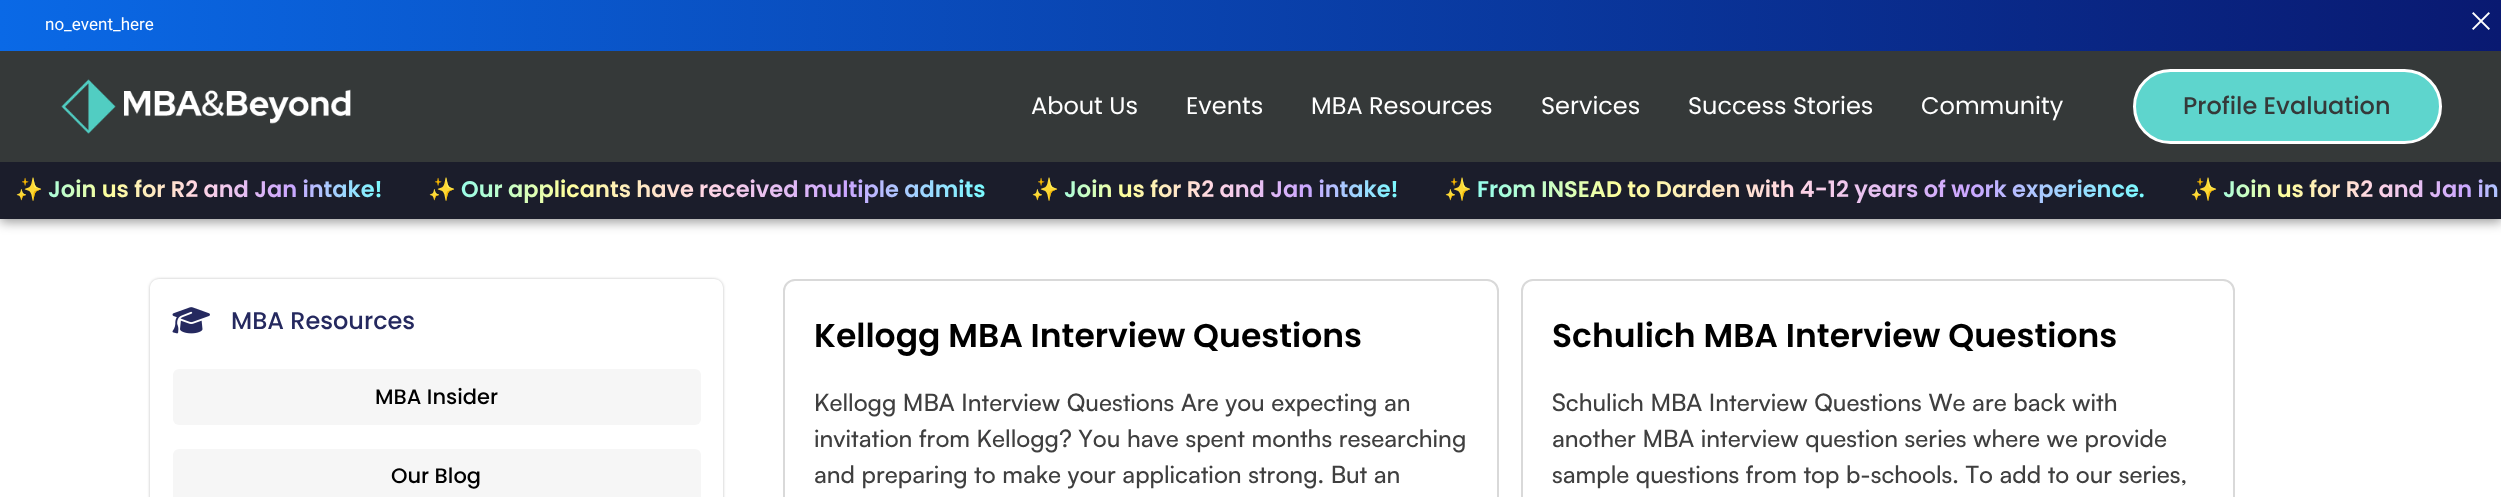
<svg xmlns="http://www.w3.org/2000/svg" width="2501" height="497">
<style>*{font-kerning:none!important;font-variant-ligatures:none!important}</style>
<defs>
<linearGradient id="g1" gradientUnits="userSpaceOnUse" x1="0" y1="26" x2="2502" y2="25"><stop offset="0" stop-color="#0a69e6"/><stop offset="1" stop-color="#091971"/></linearGradient>
<clipPath id="clip1"><path d="M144 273h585v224h-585zm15 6h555c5 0 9 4 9 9v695c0 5-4 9-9 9h-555c-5 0-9-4-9-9v-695c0-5 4-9 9-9z" clip-rule="evenodd"/></clipPath>
<linearGradient id="g2" gradientUnits="userSpaceOnUse" x1="15" y1="188" x2="383" y2="188"><stop offset="0" stop-color="#7afcff"/><stop offset="0.25" stop-color="#feff9c"/><stop offset="0.5" stop-color="#ffd5e5"/><stop offset="0.75" stop-color="#cba6ff"/><stop offset="1" stop-color="#7afcff"/></linearGradient>
<linearGradient id="g3" gradientUnits="userSpaceOnUse" x1="428" y1="188" x2="986" y2="188"><stop offset="0" stop-color="#7afcff"/><stop offset="0.25" stop-color="#feff9c"/><stop offset="0.5" stop-color="#ffd5e5"/><stop offset="0.75" stop-color="#cba6ff"/><stop offset="1" stop-color="#7afcff"/></linearGradient>
<linearGradient id="g4" gradientUnits="userSpaceOnUse" x1="1031" y1="188" x2="1399" y2="188"><stop offset="0" stop-color="#7afcff"/><stop offset="0.25" stop-color="#feff9c"/><stop offset="0.5" stop-color="#ffd5e5"/><stop offset="0.75" stop-color="#cba6ff"/><stop offset="1" stop-color="#7afcff"/></linearGradient>
<linearGradient id="g5" gradientUnits="userSpaceOnUse" x1="1444" y1="188" x2="2145" y2="188"><stop offset="0" stop-color="#7afcff"/><stop offset="0.25" stop-color="#feff9c"/><stop offset="0.5" stop-color="#ffd5e5"/><stop offset="0.75" stop-color="#cba6ff"/><stop offset="1" stop-color="#7afcff"/></linearGradient>
<linearGradient id="g6" gradientUnits="userSpaceOnUse" x1="2190" y1="188" x2="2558" y2="188"><stop offset="0" stop-color="#7afcff"/><stop offset="0.25" stop-color="#feff9c"/><stop offset="0.5" stop-color="#ffd5e5"/><stop offset="0.75" stop-color="#cba6ff"/><stop offset="1" stop-color="#7afcff"/></linearGradient>
</defs>
<rect width="100%" height="100%" fill="#fff"/>
<rect width="2501" height="51" fill="url(#g1)"/>
<text x="45" y="30" style="font-family:Roboto;font-size:17px;fill:#fff">no_event_here</text>
<image x="2472" y="12" width="18" height="18" href="media/1.png"/>
<rect y="162" width="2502" height="60" fill="#00000066" filter="blur(6px)"/>
<rect y="51" width="2501" height="111" fill="#353939"/>
<image x="61" y="79" width="290" height="55" href="media/2.png"/>
<text x="1031" y="114" style="font-family:Poppins;font-size:24px;fill:#fff">About Us</text>
<text x="1186" y="114" style="font-family:Poppins;font-size:24px;fill:#fff">Events</text>
<text x="1311" y="114" style="font-family:Poppins;font-size:24px;fill:#fff">MBA Resources</text>
<text x="1541" y="114" style="font-family:Poppins;font-size:24px;fill:#fff">Services</text>
<text x="1688" y="114" style="font-family:Poppins;font-size:24px;fill:#fff">Success Stories</text>
<text x="1921" y="114" style="font-family:Poppins;font-size:24px;fill:#fff">Community</text>
<rect x="2134.5" y="70.5" width="306" height="72" rx="36" fill="#5ed5cd" stroke="#fff" stroke-width="3"/>
<text x="2183" y="114" style="font-family:Poppins;font-size:24px;font-weight:500;fill:#353939">Profile Evaluation</text>
<g clip-path="url(#clip1)">
<rect x="150" y="279" width="573" height="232" rx="9" fill="#00000040" filter="blur(1.5px)"/>
</g>
<image x="172" y="307" width="38" height="27" href="media/3.png"/>
<text x="231" y="329" style="font-family:Poppins;font-size:24px;font-weight:500;fill:#25295f">MBA Resources</text>
<rect x="173" y="369" width="528" height="56" rx="6" fill="#f6f6f6"/>
<text x="375" y="404" style="font-family:Poppins;font-size:21px;font-weight:500;fill:#000">MBA Insider</text>
<rect x="173" y="449" width="528" height="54" rx="6" fill="#f6f6f6"/>
<text x="391" y="483" style="font-family:Poppins;font-size:21px;font-weight:500;fill:#000">Our Blog</text>
<rect x="784" y="280" width="714" height="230" rx="11" fill="none" stroke="#d9d9d9" stroke-width="2"/>
<text x="814" y="347" style="font-family:Poppins;font-size:33px;font-weight:600;fill:#000">Kellogg MBA Interview Questions</text>
<text x="814" y="411" style="font-family:Satoshi;font-size:24px;font-weight:500;fill:#3f3f3f">Kellogg MBA Interview Questions Are you expecting an</text>
<text x="814" y="447" style="font-family:Satoshi;font-size:24px;font-weight:500;fill:#3f3f3f">invitation from Kellogg? You</text>
<text x="1127" y="447" style="font-family:Satoshi;font-size:24px;font-weight:500;fill:#3f3f3f">have spent months researching</text>
<text x="814" y="483" style="font-family:Satoshi;font-size:24px;font-weight:500;fill:#3f3f3f">and preparing to make your application strong. But an</text>
<rect x="1522" y="280" width="712" height="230" rx="11" fill="none" stroke="#d9d9d9" stroke-width="2"/>
<text x="1552" y="347" style="font-family:Poppins;font-size:33px;font-weight:600;fill:#000">Schulich MBA Interview Questions</text>
<text x="1552" y="411" style="font-family:Satoshi;font-size:24px;font-weight:500;fill:#3f3f3f">Schulich MBA Interview Questions We are back with</text>
<text x="1552" y="447" style="font-family:Satoshi;font-size:24px;font-weight:500;fill:#3f3f3f">another MBA interview question series where we provide</text>
<text x="1552" y="483" style="font-family:Satoshi;font-size:24px;font-weight:500;fill:#3f3f3f">sample questions from top b-schools. To add to our series,</text>
<rect y="162" width="2501" height="57" fill="#1b1d2b"/>
<text x="15" y="197" style="font-family:Noto Color Emoji;font-size:22.5px;font-weight:bold;fill:url(#g2)">✨</text>
<text x="48" y="197" style="font-family:Poppins;font-size:22.5px;font-weight:600;fill:url(#g2)">Join us for R2 and Jan intake!</text>
<text x="428" y="197" style="font-family:Noto Color Emoji;font-size:22.5px;font-weight:bold;fill:url(#g3)">✨</text>
<text x="461" y="197" style="font-family:Poppins;font-size:22.5px;font-weight:600;fill:url(#g3)">Our applicants have received multiple admits</text>
<text x="1031" y="197" style="font-family:Noto Color Emoji;font-size:22.5px;font-weight:bold;fill:url(#g4)">✨</text>
<text x="1064" y="197" style="font-family:Poppins;font-size:22.5px;font-weight:600;fill:url(#g4)">Join us for R2 and Jan intake!</text>
<text x="1444" y="197" style="font-family:Noto Color Emoji;font-size:22.5px;font-weight:bold;fill:url(#g5)">✨</text>
<text x="1477" y="197" style="font-family:Poppins;font-size:22.5px;font-weight:600;fill:url(#g5)">From INSEAD to Darden with 4-12 years of work experience.</text>
<text x="2190" y="197" style="font-family:Noto Color Emoji;font-size:22.5px;font-weight:bold;fill:url(#g6)">✨</text>
<text x="2223" y="197" style="font-family:Poppins;font-size:22.5px;font-weight:600;fill:url(#g6)">Join us for R2 and Jan in</text>
</svg>
